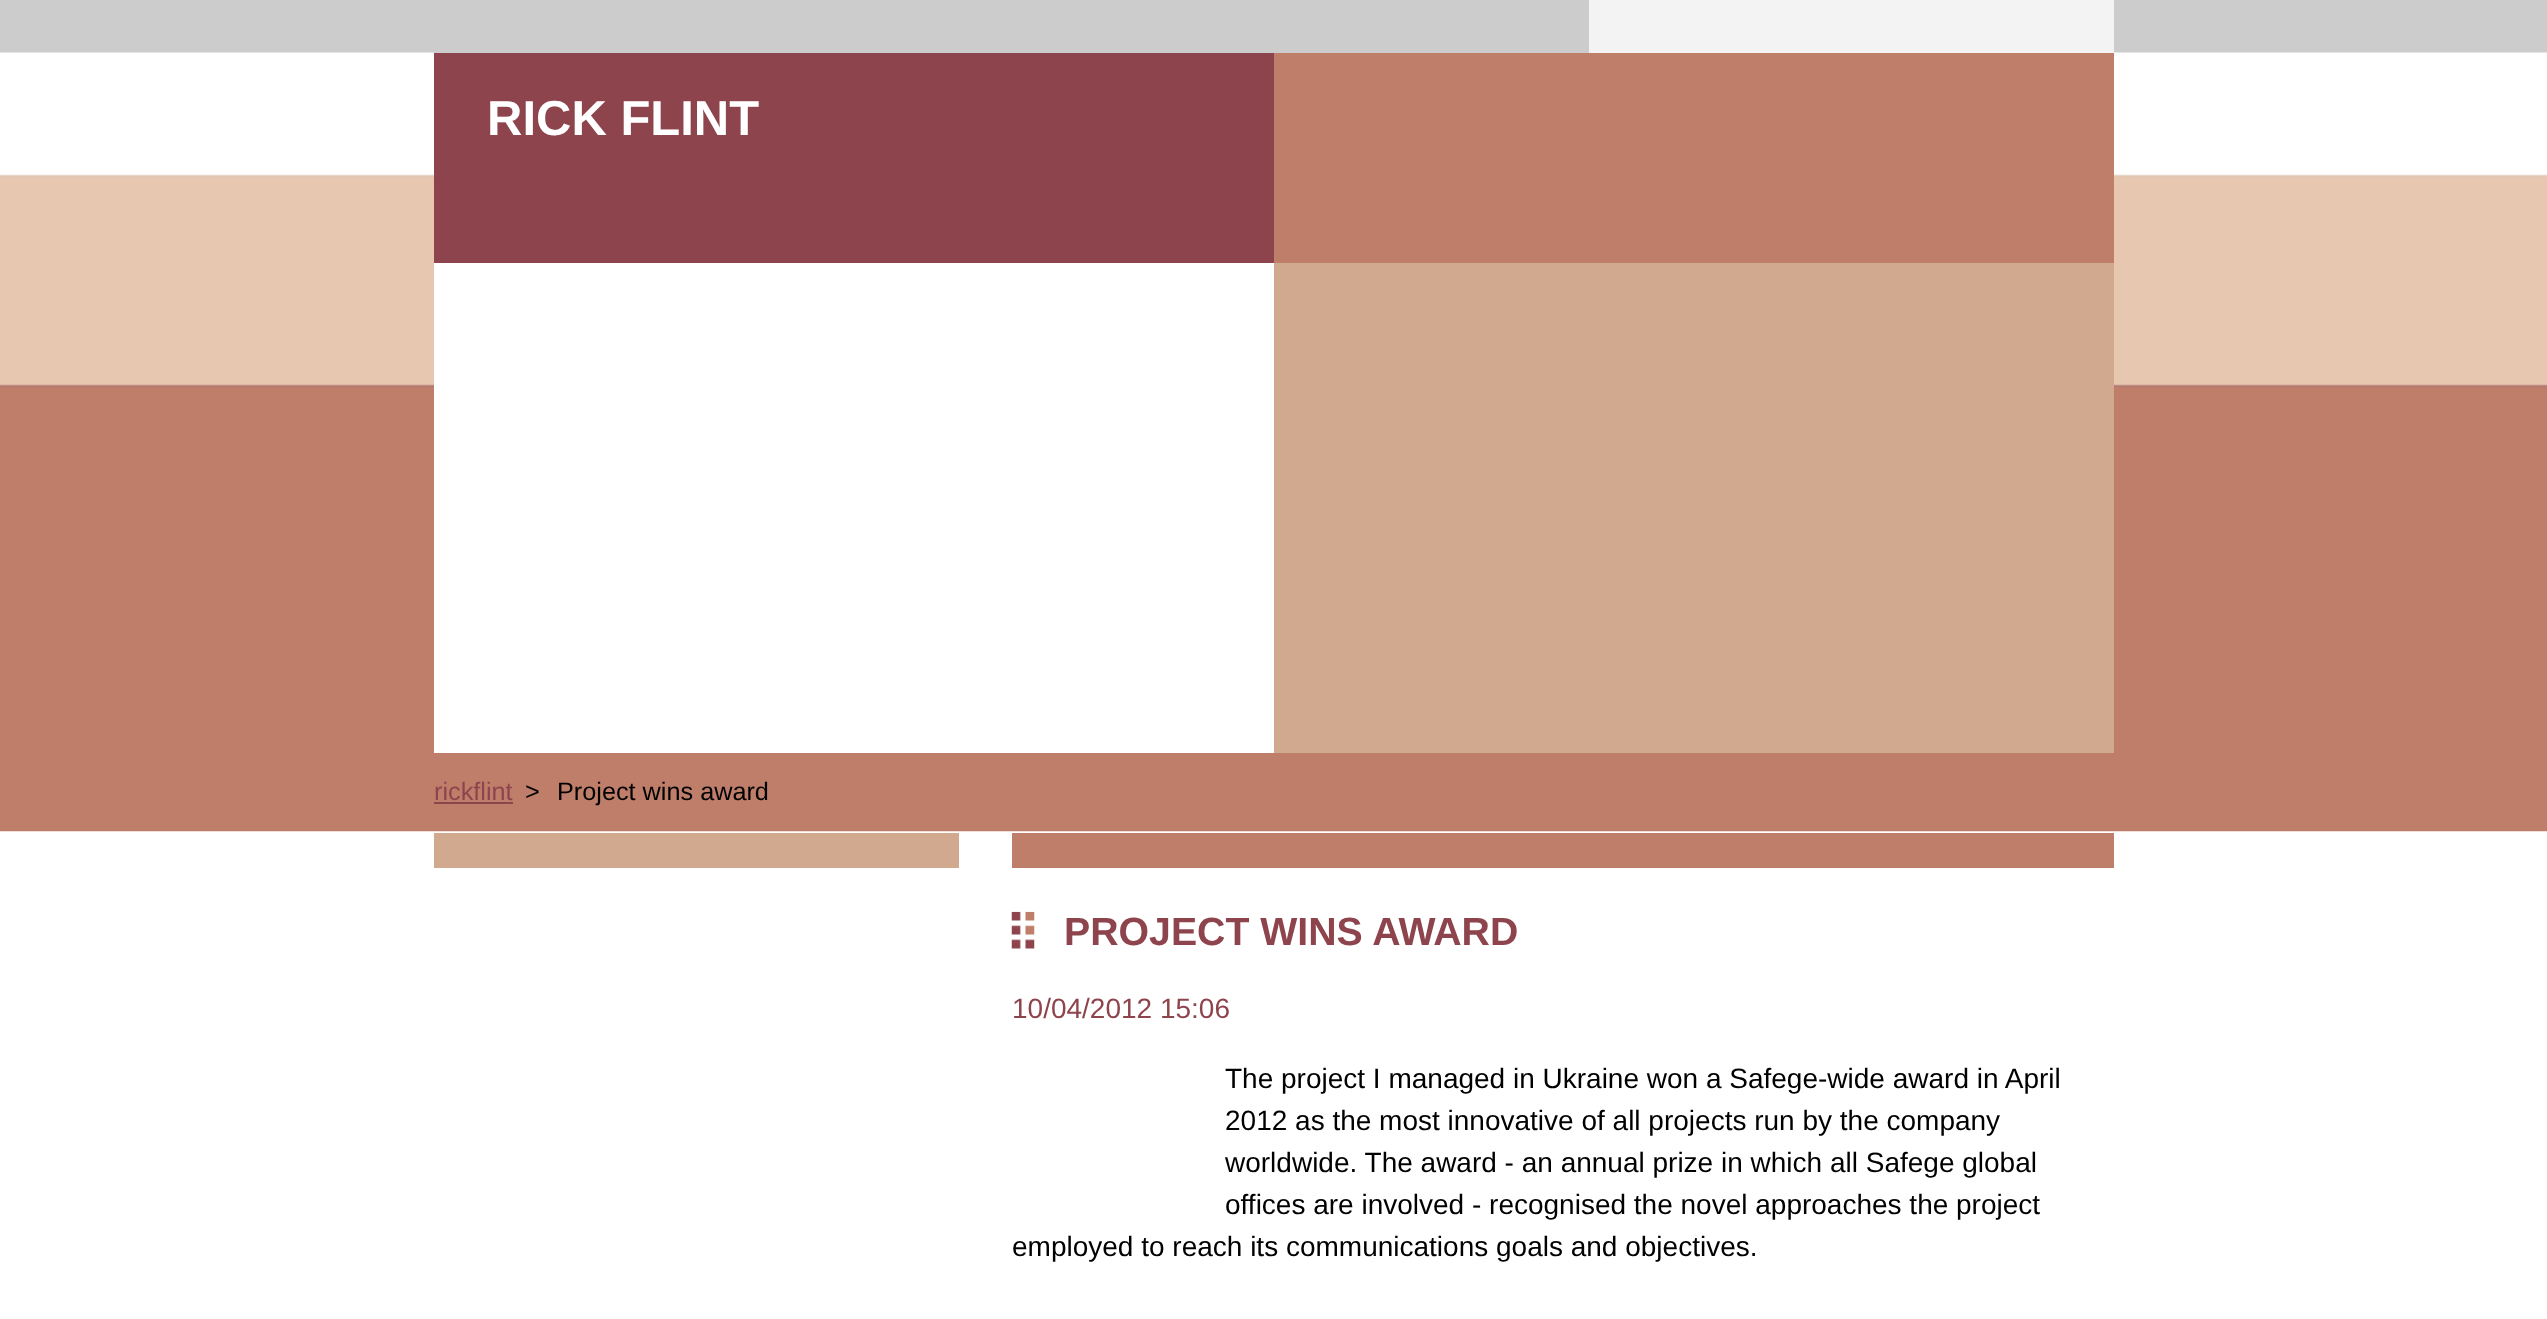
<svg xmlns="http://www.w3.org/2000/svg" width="2547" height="1319">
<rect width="100%" height="100%" fill="#fff"/>
<image x="0" y="0" width="2547" height="832" href="media/1.png"/>
<rect x="434" y="52" width="1155" height="1" fill="#ccc"/>
<rect x="1589" width="525" height="53" fill="#f3f3f3"/>
<rect x="434" y="53" width="840" height="210" fill="#8e444d"/>
<text x="487" y="135" style="font-family:Liberation Sans;font-size:49px;font-weight:bold;fill:#fff">RICK FLINT</text>
<rect x="1274" y="53" width="840" height="210" fill="#bf7e6a"/>
<rect x="434" y="263" width="840" height="490" fill="#fff"/>
<rect x="1274" y="263" width="840" height="490" fill="#d1a98e"/>
<text x="434" y="800" style="font-family:Liberation Sans;font-size:25.25px;fill:#8e444d">rickflint</text>
<rect x="434" y="802" width="79" height="2" fill="#8e444d"/>
<text x="525" y="800" style="font-family:Liberation Sans;font-size:25.25px;fill:#000">&gt;</text>
<text x="557" y="800" style="font-family:Liberation Sans;font-size:25.25px;fill:#000">Project wins award</text>
<rect x="434" y="833" width="525" height="35" fill="#d1a98e"/>
<rect x="1012" y="833" width="1102" height="35" fill="#bf7e6a"/>
<image x="1011" y="911" width="24" height="38" href="media/2.png"/>
<text x="1064" y="945" style="font-family:Liberation Sans;font-size:39.25px;font-weight:bold;fill:#8e444d">PROJECT WINS AWARD</text>
<text x="1012" y="1018" style="font-family:Liberation Sans;font-size:28px;fill:#8e444d">10/04/2012 15:06</text>
<text x="1225" y="1088" style="font-family:Liberation Sans;font-size:28px;fill:#000">The project I managed in Ukraine won a Safege-wide award in April</text>
<text x="1225" y="1130" style="font-family:Liberation Sans;font-size:28px;fill:#000">2012 as the most innovative of all projects run by the company</text>
<text x="1225" y="1172" style="font-family:Liberation Sans;font-size:28px;fill:#000">worldwide. The award - an annual prize in which all Safege global</text>
<text x="1225" y="1214" style="font-family:Liberation Sans;font-size:28px;fill:#000">offices are involved - recognised the novel approaches the project</text>
<text x="1012" y="1256" style="font-family:Liberation Sans;font-size:28px;fill:#000">employed to reach its communications goals and objectives.</text>
</svg>
